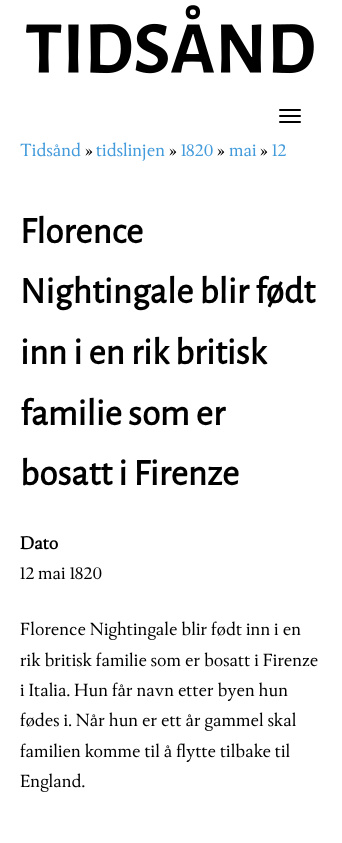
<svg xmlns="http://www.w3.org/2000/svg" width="342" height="843">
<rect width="100%" height="100%" fill="#fff"/>
<image x="26" y="5" width="288" height="69" href="media/1.png"/>
<rect x="279" y="109" width="22" height="2" rx="1" fill="#000"/>
<rect x="279" y="115" width="22" height="2" rx="1" fill="#000"/>
<rect x="279" y="121" width="22" height="2" rx="1" fill="#000"/>
<text x="20" y="156" style="font-family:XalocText;font-size:18.7px;fill:#439bdb">Tidsånd</text>
<text x="85" y="156" style="font-family:XalocText;font-size:18.7px;fill:#000">»</text>
<text x="96" y="156" style="font-family:XalocText;font-size:18.7px;fill:#439bdb">tidslinjen</text>
<text x="169" y="156" style="font-family:XalocText;font-size:18.7px;fill:#000">»</text>
<text x="181" y="156" style="font-family:XalocText;font-size:18.7px;fill:#439bdb">1820</text>
<text x="217" y="156" style="font-family:XalocText;font-size:18.7px;fill:#000">»</text>
<text x="229" y="156" style="font-family:XalocText;font-size:18.7px;fill:#439bdb">mai</text>
<text x="260" y="156" style="font-family:XalocText;font-size:18.7px;fill:#000">»</text>
<text x="272" y="156" style="font-family:XalocText;font-size:18.7px;fill:#439bdb">12</text>
<text x="20" y="243" style="font-family:Alegreya Sans;font-size:37.25px;font-weight:bold;fill:#000">Florence</text>
<text x="20" y="303" style="font-family:Alegreya Sans;font-size:37.25px;font-weight:bold;fill:#000">Nightingale blir født</text>
<text x="20" y="364" style="font-family:Alegreya Sans;font-size:37.25px;font-weight:bold;fill:#000">inn i en rik britisk</text>
<text x="20" y="425" style="font-family:Alegreya Sans;font-size:37.25px;font-weight:bold;fill:#000">familie som er</text>
<text x="20" y="485" style="font-family:Alegreya Sans;font-size:37.25px;font-weight:bold;fill:#000">bosatt i Firenze</text>
<text x="20" y="549" style="font-family:XalocText;font-size:18.7px;font-weight:bold;fill:#000">Dato</text>
<text x="20" y="579" style="font-family:XalocText;font-size:18.7px;fill:#000">12 mai 1820</text>
<text x="20" y="635" style="font-family:XalocText;font-size:18.7px;fill:#000">Florence Nightingale blir født inn i en</text>
<text x="20" y="666" style="font-family:XalocText;font-size:18.7px;fill:#000">rik britisk familie som er bosatt i Firenze</text>
<text x="20" y="696" style="font-family:XalocText;font-size:18.7px;fill:#000">i Italia. Hun får navn etter byen hun</text>
<text x="20" y="726" style="font-family:XalocText;font-size:18.7px;fill:#000">fødes i. Når hun er ett år gammel skal</text>
<text x="20" y="757" style="font-family:XalocText;font-size:18.7px;fill:#000">familien komme til å flytte tilbake til</text>
<text x="20" y="787" style="font-family:XalocText;font-size:18.7px;fill:#000">England.</text>
</svg>
